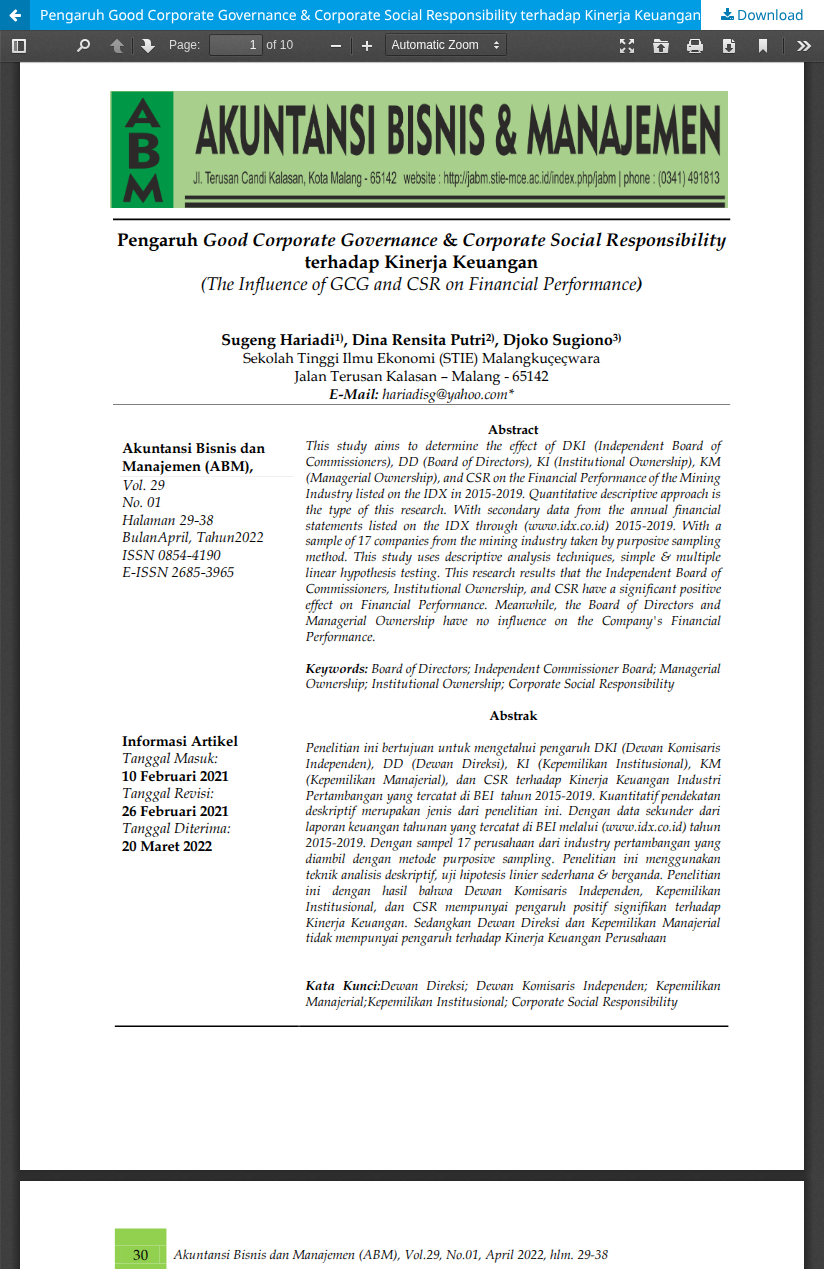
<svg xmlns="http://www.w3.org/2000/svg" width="824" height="1269">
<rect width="100%" height="100%" fill="#fff"/>
<rect x="30" width="671" height="30" fill="#009de5"/>
<rect width="30" height="30" fill="#007ab2"/>
<image x="9" y="9" width="12" height="13" href="media/1.png"/>
<text x="40" y="20" style="font-family:Noto Sans;font-size:14px;fill:#fff">Pengaruh Good Corporate Governance &amp; Corporate Social Responsibility terhadap Kinerja Keuangan</text>
<image x="721" y="8" width="13" height="12" href="media/2.png"/>
<text x="737" y="20" style="font-family:Noto Sans;font-size:14px;fill:#007ab2">Download</text>
<image x="0" y="30" width="824" height="1239" href="media/3.png"/>
</svg>
